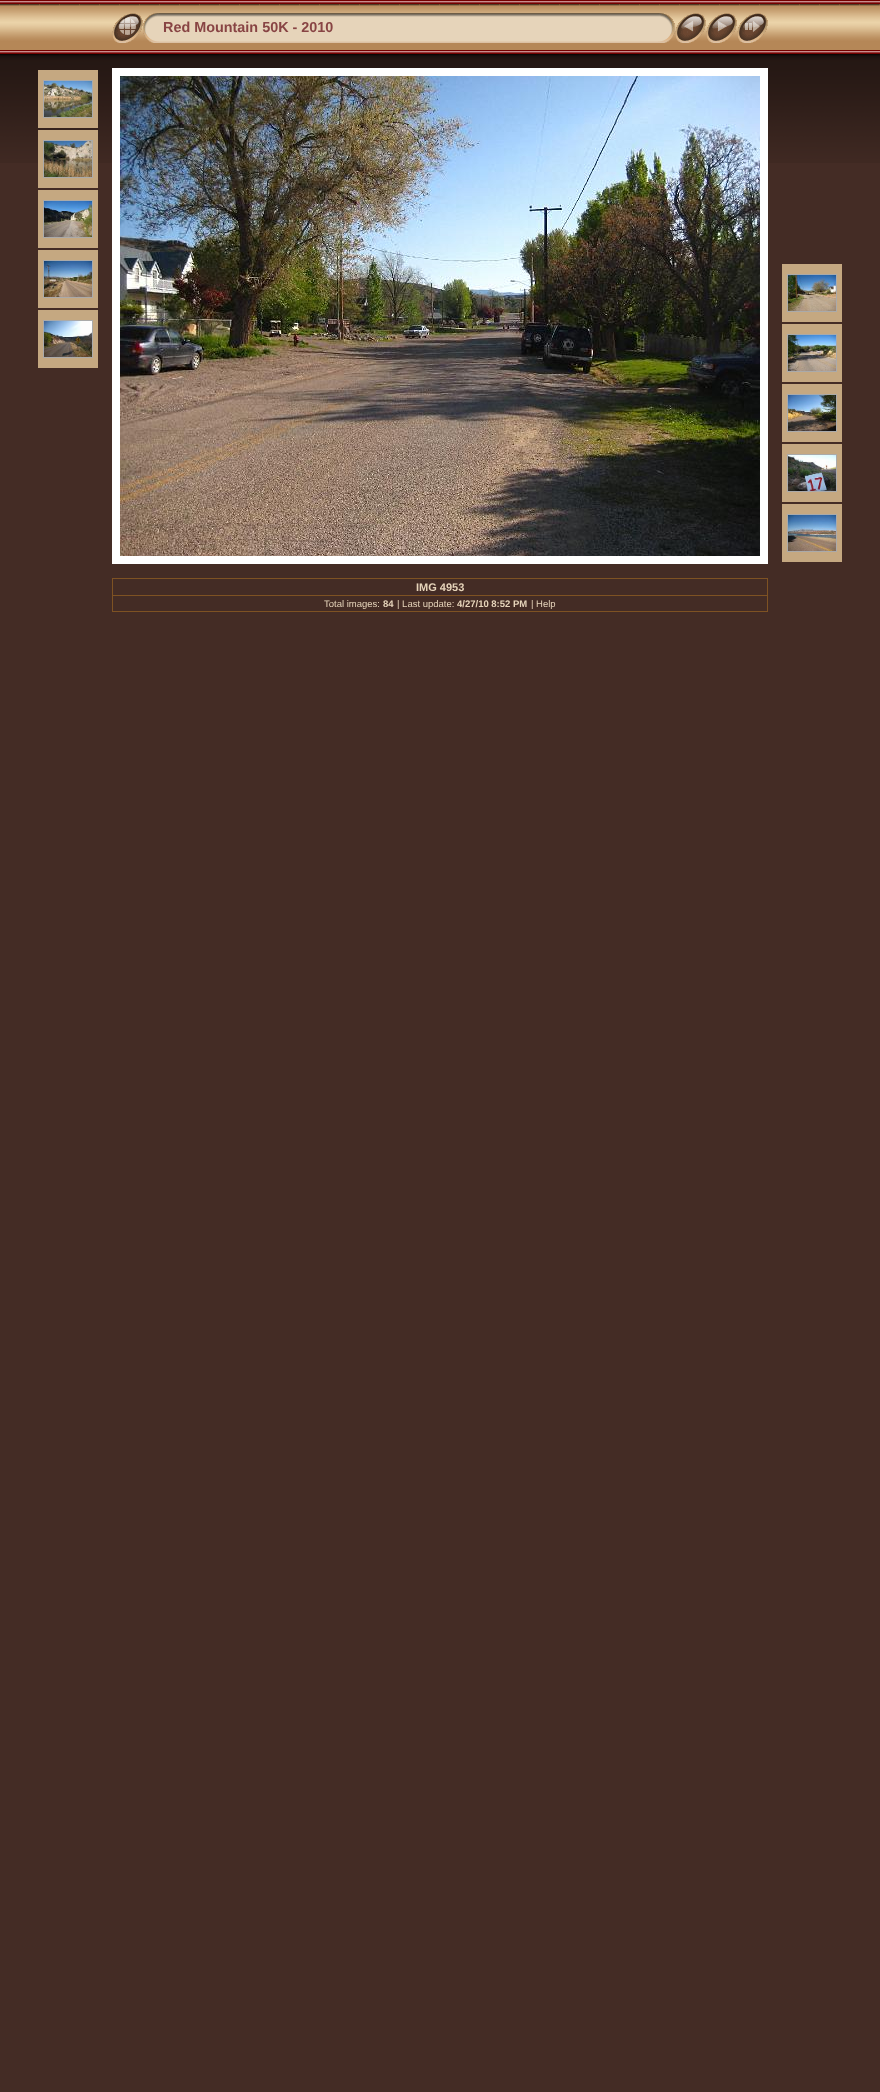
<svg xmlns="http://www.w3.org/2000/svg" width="880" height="2092">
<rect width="100%" height="100%" fill="#442c25"/>
<image x="0" y="0" width="880" height="163" href="media/1.png"/>
<image x="112" y="13" width="31" height="30" href="media/2.png"/>
<image x="143" y="13" width="20" height="30" href="media/3.png"/>
<image x="163" y="13" width="492" height="30" href="media/4.png"/>
<text x="163" y="32" style="font-family:Liberation Sans;font-size:14.4px;font-weight:bold;fill:#844">Red Mountain 50K - 2010</text>
<image x="655" y="13" width="20" height="30" href="media/5.png"/>
<image x="675" y="13" width="31" height="30" href="media/6.png"/>
<image x="706" y="13" width="31" height="30" href="media/7.png"/>
<image x="737" y="13" width="31" height="30" href="media/8.png"/>
<rect x="38" y="70" width="60" height="58" fill="#c5a881"/>
<rect x="43.5" y="80.5" width="49" height="37" fill="none" stroke="#aaa"/>
<image x="44" y="81" width="48" height="36" href="media/9.png"/>
<rect x="38" y="130" width="60" height="58" fill="#c5a881"/>
<rect x="43.5" y="140.5" width="49" height="37" fill="none" stroke="#aaa"/>
<image x="44" y="141" width="48" height="36" href="media/10.png"/>
<rect x="38" y="190" width="60" height="58" fill="#c5a881"/>
<rect x="43.5" y="200.5" width="49" height="37" fill="none" stroke="#aaa"/>
<image x="44" y="201" width="48" height="36" href="media/11.png"/>
<rect x="38" y="250" width="60" height="58" fill="#c5a881"/>
<rect x="43.5" y="260.5" width="49" height="37" fill="none" stroke="#aaa"/>
<image x="44" y="261" width="48" height="36" href="media/12.png"/>
<rect x="38" y="310" width="60" height="58" fill="#c5a881"/>
<rect x="43.5" y="320.5" width="49" height="37" fill="none" stroke="#aaa"/>
<image x="44" y="321" width="48" height="36" href="media/13.png"/>
<rect x="116" y="72" width="648" height="488" fill="none" stroke="#fff" stroke-width="8"/>
<image x="120" y="76" width="640" height="480" href="media/14.png"/>
<rect x="782" y="264" width="60" height="58" fill="#c5a881"/>
<rect x="787.5" y="274.5" width="49" height="37" fill="none" stroke="#aaa"/>
<image x="788" y="275" width="48" height="36" href="media/15.png"/>
<rect x="782" y="324" width="60" height="58" fill="#c5a881"/>
<rect x="787.5" y="334.5" width="49" height="37" fill="none" stroke="#aaa"/>
<image x="788" y="335" width="48" height="36" href="media/16.png"/>
<rect x="782" y="384" width="60" height="58" fill="#c5a881"/>
<rect x="787.5" y="394.5" width="49" height="37" fill="none" stroke="#aaa"/>
<image x="788" y="395" width="48" height="36" href="media/17.png"/>
<rect x="782" y="444" width="60" height="58" fill="#c5a881"/>
<rect x="787.5" y="454.5" width="49" height="37" fill="none" stroke="#aaa"/>
<image x="788" y="455" width="48" height="36" href="media/18.png"/>
<rect x="782" y="504" width="60" height="58" fill="#c5a881"/>
<rect x="787.5" y="514.5" width="49" height="37" fill="none" stroke="#aaa"/>
<image x="788" y="515" width="48" height="36" href="media/19.png"/>
<rect x="112" y="578" width="656" height="1" fill="#7e5223"/>
<rect x="767" y="578" width="1" height="34" fill="#7e5223"/>
<rect x="112" y="611" width="656" height="1" fill="#7e5223"/>
<rect x="112" y="578" width="1" height="34" fill="#7e5223"/>
<text x="416" y="591" style="font-family:Liberation Sans;font-size:11px;font-weight:bold;fill:#e6d4ba">IMG 4953</text>
<rect x="112" y="595" width="656" height="1" fill="#7e5223"/>
<text x="324" y="607" style="font-family:Liberation Sans;font-size:9.5px;fill:#e6d4ba">Total images:</text>
<text x="383" y="607" style="font-family:Liberation Sans;font-size:9.5px;font-weight:bold;fill:#e6d4ba">84</text>
<text x="397" y="607" style="font-family:Liberation Sans;font-size:9.5px;fill:#e6d4ba">| Last update:</text>
<text x="457" y="607" style="font-family:Liberation Sans;font-size:9.5px;font-weight:bold;fill:#e6d4ba">4/27/10 8:52 PM</text>
<text x="531" y="607" style="font-family:Liberation Sans;font-size:9.5px;fill:#e6d4ba">| Help</text>
</svg>
